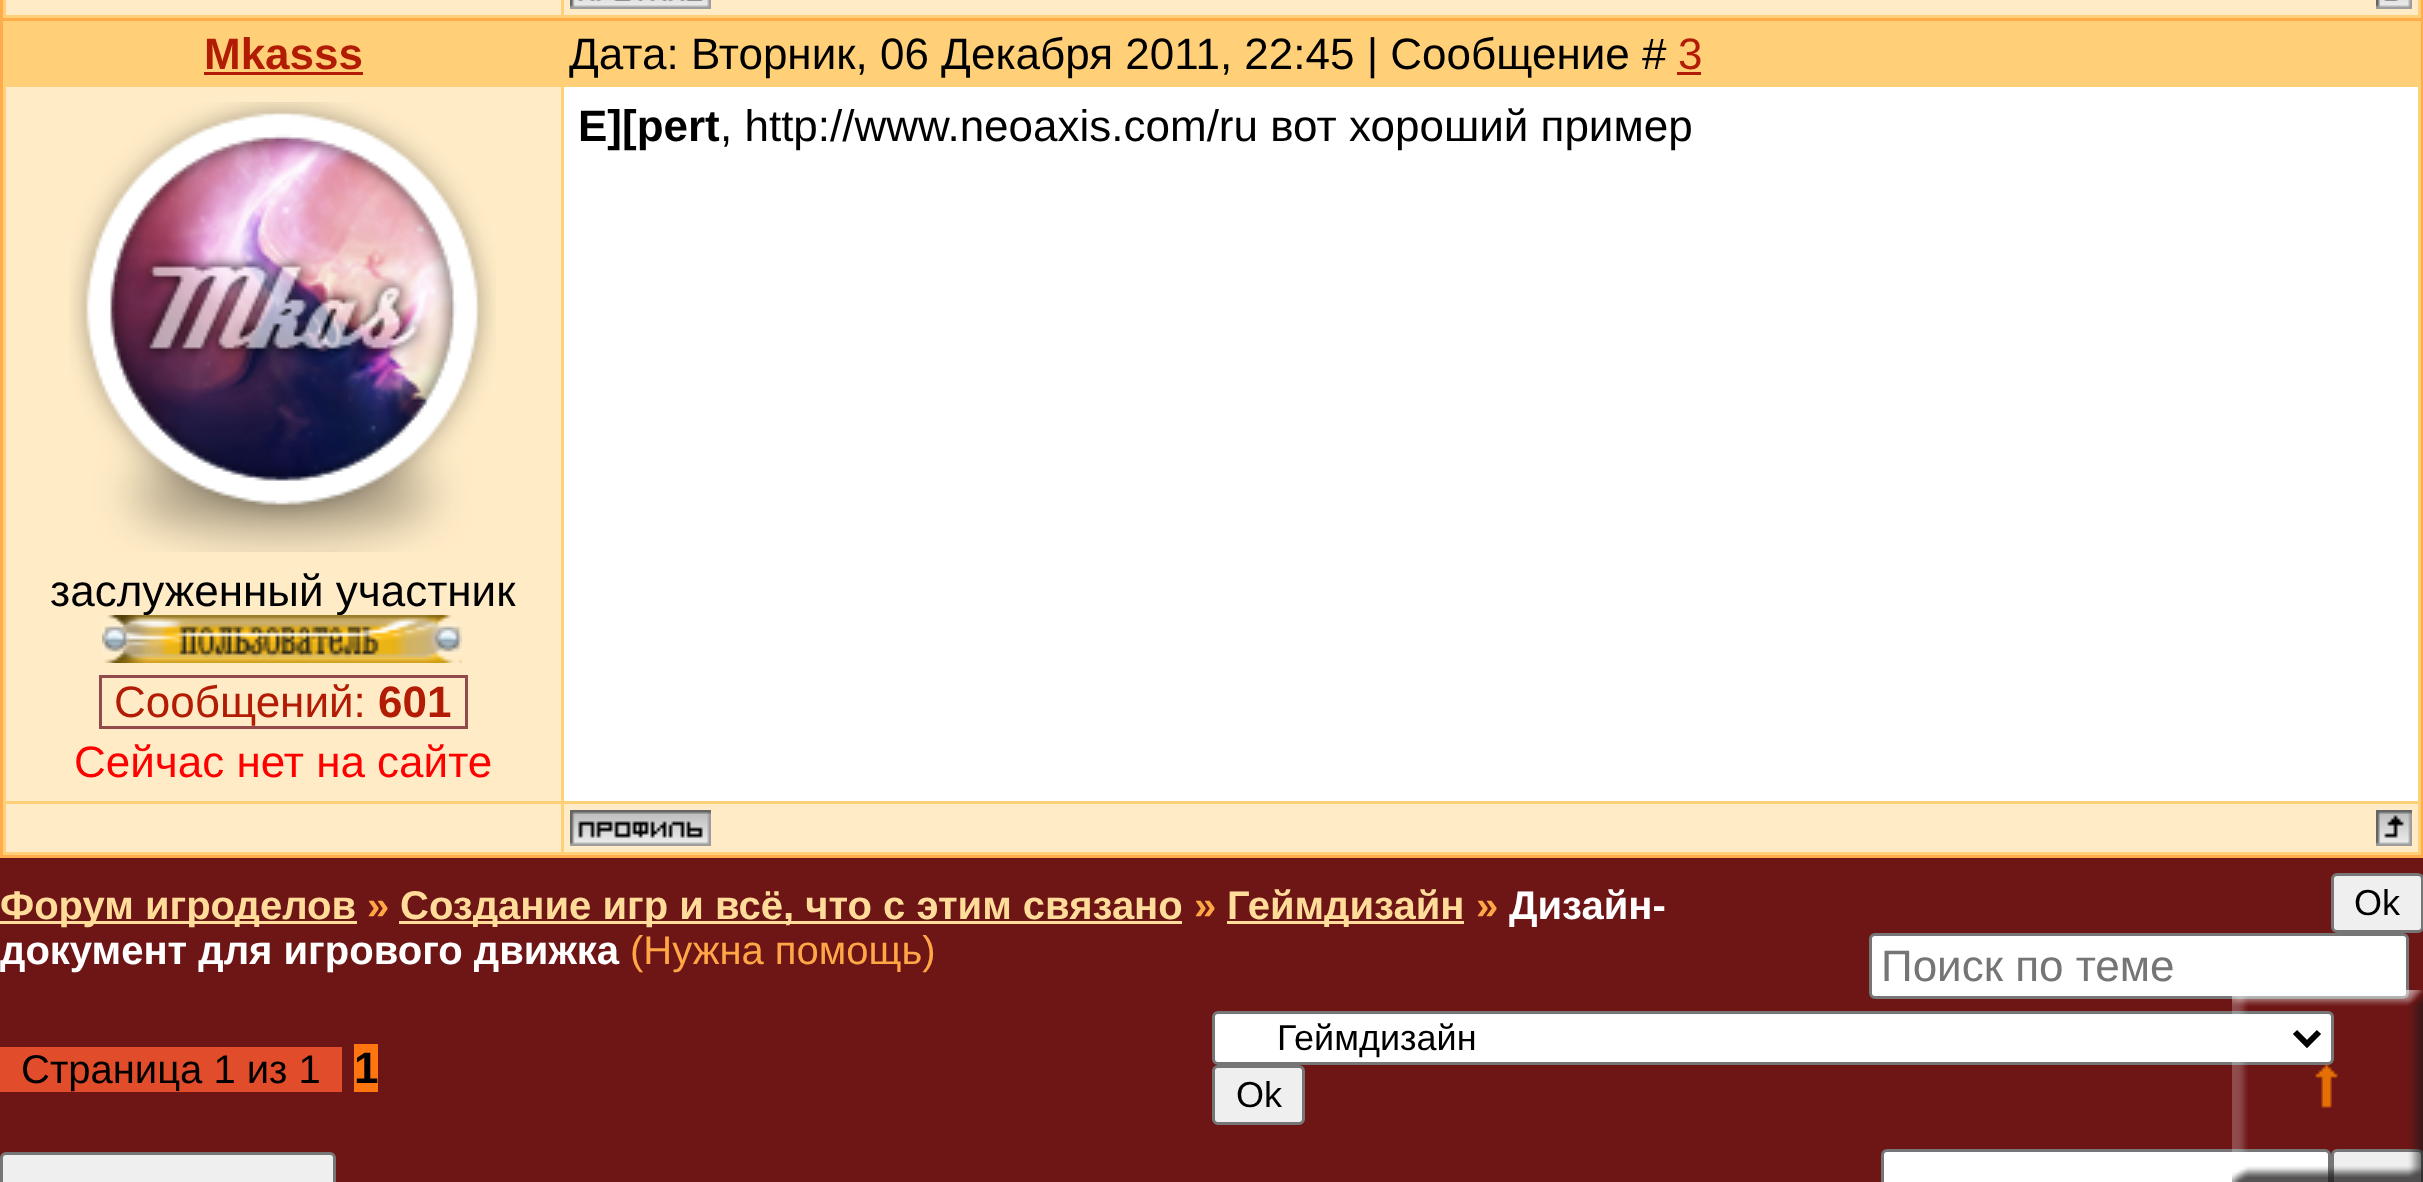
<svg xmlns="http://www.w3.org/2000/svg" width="2423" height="1182">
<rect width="100%" height="100%" fill="#6e1616"/>
<rect width="2423" height="858" fill="#ffac4c"/>
<rect x="3" width="2418" height="18" fill="#ffd077"/>
<rect x="6" width="555" height="15" fill="#ffecc7"/>
<rect x="564" width="1854" height="15" fill="#ffecc7"/>
<image x="570" y="0" width="141" height="9" href="media/1.png"/>
<image x="2376" y="0" width="36" height="9" href="media/2.png"/>
<rect x="3" y="21" width="2418" height="834" fill="#ffd077"/>
<text x="204" y="69" style="font-family:Liberation Sans;font-size:44px;font-weight:bold;fill:#b21b04">Mkasss</text>
<rect x="204" y="72" width="159" height="3" fill="#b21b04"/>
<text x="569" y="69" style="font-family:Liberation Sans;font-size:44px;fill:#000">Дата: Вторник, 06 Декабря 2011, 22:45 | Сообщение #</text>
<text x="1678" y="69" style="font-family:Liberation Sans;font-size:44px;fill:#b21b04">3</text>
<rect x="1677" y="72" width="24" height="3" fill="#b21b04"/>
<rect x="564" y="87" width="1854" height="714" fill="#fff"/>
<text x="578" y="141" style="font-family:Liberation Sans;font-size:44px;font-weight:bold;fill:#000">E][pert</text>
<text x="720" y="141" style="font-family:Liberation Sans;font-size:44px;fill:#000">, http://www.neoaxis.com/ru вот хороший пример</text>
<rect x="6" y="87" width="555" height="714" fill="#ffecc7"/>
<image x="69" y="102" width="427" height="450" href="media/3.png"/>
<text x="50" y="606" style="font-family:Liberation Sans;font-size:44px;fill:#000">заслуженный участник</text>
<image x="102" y="615" width="360" height="48" href="media/4.png"/>
<text x="114" y="717" style="font-family:Liberation Sans;font-size:44px;fill:#b21b04">Сообщений:</text>
<rect x="99" y="726" width="279" height="3" fill="#934a4a"/>
<rect x="99" y="675" width="369" height="3" fill="#934a4a"/>
<rect x="99" y="675" width="3" height="54" fill="#934a4a"/>
<text x="378" y="717" style="font-family:Liberation Sans;font-size:44px;font-weight:bold;fill:#b21b04">601</text>
<rect x="465" y="675" width="3" height="54" fill="#934a4a"/>
<rect x="378" y="726" width="90" height="3" fill="#934a4a"/>
<text x="74" y="777" style="font-family:Liberation Sans;font-size:44px;fill:#f00">Сейчас нет на сайте</text>
<rect x="6" y="804" width="555" height="48" fill="#ffecc7"/>
<rect x="564" y="804" width="1854" height="48" fill="#ffecc7"/>
<image x="570" y="810" width="141" height="36" href="media/5.png"/>
<image x="2376" y="810" width="36" height="36" href="media/6.png"/>
<rect y="921" width="357" height="3" fill="#ffdc99"/>
<text x="0" y="919" style="font-family:Liberation Sans;font-size:40px;font-weight:bold;fill:#ffdc99">Форум игроделов</text>
<text x="367" y="919" style="font-family:Liberation Sans;font-size:40px;font-weight:bold;fill:#ffa747">»</text>
<rect x="399" y="921" width="783" height="3" fill="#ffdc99"/>
<text x="400" y="919" style="font-family:Liberation Sans;font-size:40px;font-weight:bold;fill:#ffdc99">Создание игр и всё, что с этим связано</text>
<text x="1194" y="919" style="font-family:Liberation Sans;font-size:40px;font-weight:bold;fill:#ffa747">»</text>
<rect x="1227" y="921" width="237" height="3" fill="#ffdc99"/>
<text x="1227" y="919" style="font-family:Liberation Sans;font-size:40px;font-weight:bold;fill:#ffdc99">Геймдизайн</text>
<text x="1476" y="919" style="font-family:Liberation Sans;font-size:40px;font-weight:bold;fill:#ffa747">»</text>
<text x="1509" y="919" style="font-family:Liberation Sans;font-size:40px;font-weight:bold;fill:#fff">Дизайн-</text>
<text x="0" y="964" style="font-family:Liberation Sans;font-size:40px;font-weight:bold;fill:#fff">документ для игрового движка</text>
<text x="630" y="964" style="font-family:Liberation Sans;font-size:40px;fill:#ffa747">(Нужна помощь)</text>
<rect x="2332.5" y="874.5" width="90" height="57" rx="4.5" fill="#efefef" stroke="#767676" stroke-width="3"/>
<text x="2354" y="915" style="font-family:Liberation Sans;font-size:36px;fill:#000">Ok</text>
<rect x="1870.5" y="934.5" width="537" height="63" rx="4.5" fill="#fff" stroke="#767676" stroke-width="3"/>
<text x="1881" y="981" style="font-family:Liberation Sans;font-size:44px;fill:#757575">Поиск по теме</text>
<rect y="1047" width="342" height="45" fill="#e14c2a"/>
<text x="21" y="1083" style="font-family:Liberation Sans;font-size:40px;fill:#000">Страница 1 из 1</text>
<rect x="354" y="1044" width="24" height="48" fill="#ff7611"/>
<text x="354" y="1083" style="font-family:Liberation Sans;font-size:44px;font-weight:bold;fill:#000">1</text>
<rect x="1213.5" y="1012.5" width="1119" height="51" rx="4.5" fill="#fff" stroke="#767676" stroke-width="3"/>
<path d="M2295 1032l12 12l12-12" fill="none" stroke="#000" stroke-width="6"/>
<text x="1277" y="1050" style="font-family:Liberation Sans;font-size:36px;fill:#000">Геймдизайн</text>
<rect x="1213.5" y="1066.5" width="90" height="57" rx="4.5" fill="#efefef" stroke="#767676" stroke-width="3"/>
<text x="1236" y="1107" style="font-family:Liberation Sans;font-size:36px;fill:#000">Ok</text>
<rect x="1.5" y="1153.5" width="333" height="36" rx="4.5" fill="#efefef" stroke="#767676" stroke-width="3"/>
<rect x="1882.5" y="1150.5" width="447" height="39" rx="4.5" fill="#fff" stroke="#767676" stroke-width="3"/>
<rect x="2332.5" y="1150.5" width="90" height="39" rx="4.5" fill="#efefef" stroke="#767676" stroke-width="3"/>
<image x="2232" y="990" width="191" height="192" href="media/7.png"/>
</svg>
